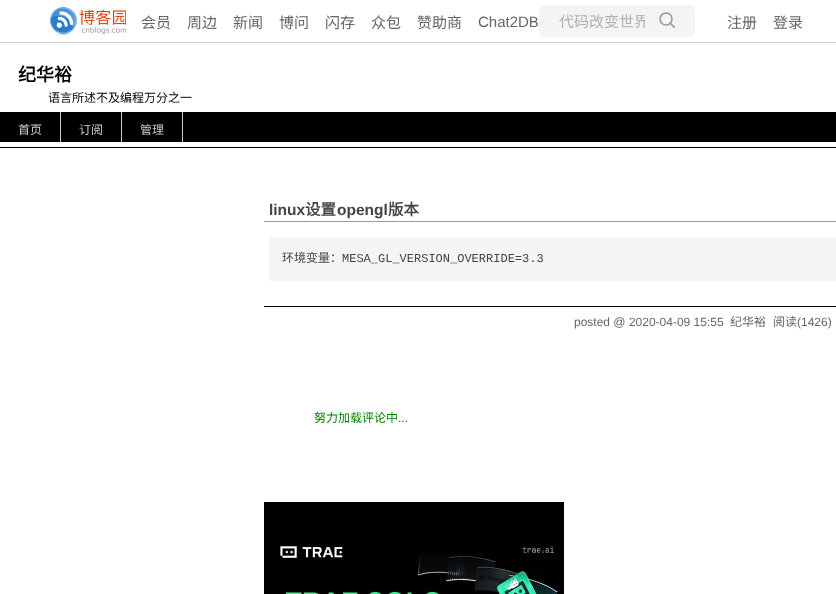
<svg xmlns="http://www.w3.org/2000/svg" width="836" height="594">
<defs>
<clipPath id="clip1"><rect x="559" y="13" width="86" height="17"/></clipPath>
<clipPath id="clip2"><rect x="659" y="12" width="16" height="16"/></clipPath>
</defs>
<rect width="100%" height="100%" fill="#fff"/>
<rect y="42" width="836" height="1" fill="#ccc"/>
<image x="50" y="7" width="76" height="28" href="media/1.png"/>
<text x="141" y="28" style="font-family:Noto Sans CJK SC;font-size:15px;fill:#666">会员</text>
<text x="187" y="28" style="font-family:Noto Sans CJK SC;font-size:15px;fill:#666">周边</text>
<text x="233" y="28" style="font-family:Noto Sans CJK SC;font-size:15px;fill:#666">新闻</text>
<text x="279" y="28" style="font-family:Noto Sans CJK SC;font-size:15px;fill:#666">博问</text>
<text x="325" y="28" style="font-family:Noto Sans CJK SC;font-size:15px;fill:#666">闪存</text>
<text x="371" y="28" style="font-family:Noto Sans CJK SC;font-size:15px;fill:#666">众包</text>
<text x="417" y="28" style="font-family:Noto Sans CJK SC;font-size:15px;fill:#666">赞助商</text>
<text x="478" y="27" style="font-family:Liberation Sans;font-size:15px;fill:#666">Chat2DB</text>
<rect x="539" y="5" width="156" height="32" rx="6" fill="#f4f4f4"/>
<g clip-path="url(#clip1)">
<text x="559" y="27" style="font-family:Noto Sans CJK SC;font-size:15px;fill:#afafaf">代码改变世界</text>
</g>
<circle cx="666" cy="19" r="6" fill="none" stroke="#979797" stroke-width="1.6"/>
<g clip-path="url(#clip2)">
<path d="M670 23l6 6" fill="none" stroke="#979797" stroke-width="1.6"/>
</g>
<text x="727" y="28" style="font-family:Noto Sans CJK SC;font-size:15px;fill:#666">注册</text>
<text x="773" y="28" style="font-family:Noto Sans CJK SC;font-size:15px;fill:#666">登录</text>
<rect y="147" width="836" height="1" fill="#000"/>
<text x="18" y="81" style="font-family:Noto Sans CJK SC;font-size:18px;font-weight:bold;fill:#000">纪华裕</text>
<text x="48" y="102" style="font-family:Noto Sans CJK SC;font-size:12px;fill:#000">语言所述不及编程万分之一</text>
<rect y="112" width="836" height="30" fill="#000"/>
<rect x="60" y="112" width="1" height="30" fill="#ccc"/>
<text x="18" y="134" style="font-family:Noto Sans CJK SC;font-size:12px;fill:#ccc">首页</text>
<rect x="121" y="112" width="1" height="30" fill="#ccc"/>
<text x="79" y="134" style="font-family:Noto Sans CJK SC;font-size:12px;fill:#ccc">订阅</text>
<rect x="182" y="112" width="1" height="30" fill="#ccc"/>
<text x="140" y="134" style="font-family:Noto Sans CJK SC;font-size:12px;fill:#ccc">管理</text>
<rect x="264" y="221" width="572" height="1" fill="#999"/>
<text x="269" y="215" style="font-family:Liberation Sans;font-size:15.5px;font-weight:bold;fill:#444">linux</text>
<text x="305" y="215" style="font-family:Noto Sans CJK SC;font-size:15.5px;font-weight:bold;fill:#444">设置</text>
<text x="337" y="215" style="font-family:Liberation Sans;font-size:15.5px;font-weight:bold;fill:#444">opengl</text>
<text x="388" y="215" style="font-family:Noto Sans CJK SC;font-size:15.5px;font-weight:bold;fill:#444">版本</text>
<rect x="264" y="306" width="572" height="1" fill="#000"/>
<rect x="269" y="237" width="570" height="44" rx="3" fill="#f5f5f5"/>
<text x="282" y="262" style="font-family:Noto Sans CJK SC;font-size:12px;fill:#444">环境变量：</text>
<text x="342" y="262" style="font-family:Liberation Mono;font-size:12px;fill:#444">MESA_GL_VERSION_OVERRIDE=3.3</text>
<text x="574" y="326" style="font-family:Liberation Sans;font-size:12px;fill:#666">posted @ 2020-04-09 15:55</text>
<text x="730" y="326" style="font-family:Noto Sans CJK SC;font-size:12px;fill:#666">纪华裕</text>
<text x="773" y="326" style="font-family:Noto Sans CJK SC;font-size:12px;fill:#666">阅读</text>
<text x="797" y="326" style="font-family:Liberation Sans;font-size:12px;fill:#666">(1426)</text>
<text x="314" y="422" style="font-family:Noto Sans CJK SC;font-size:12px;fill:#008000">努力加载评论中</text>
<text x="398" y="422" style="font-family:Liberation Sans;font-size:12px;fill:#008000">...</text>
<image x="264" y="502" width="300" height="92" href="media/2.png"/>
</svg>
